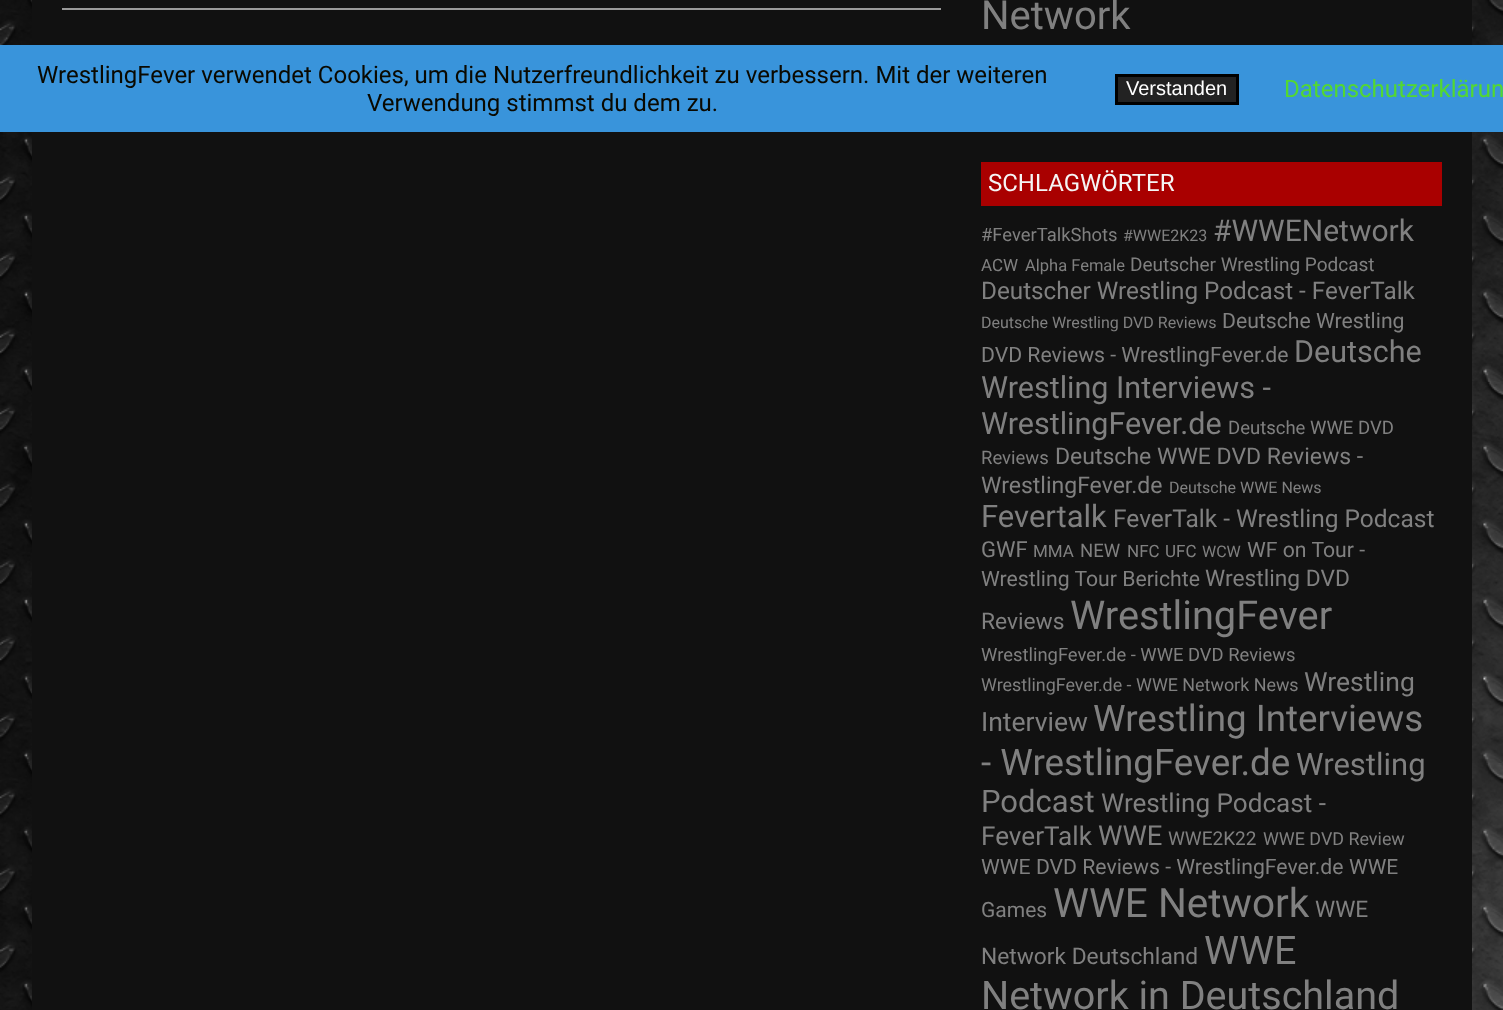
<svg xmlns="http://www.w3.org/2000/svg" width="1503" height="1010">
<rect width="100%" height="100%" fill="#fff"/>
<image x="0" y="0" width="1503" height="1010" href="media/1.png"/>
<rect x="32" width="1440" height="1010" fill="#111"/>
<rect x="62" y="8" width="879" height="2" fill="#999"/>
<text x="981" y="29" style="font-family:Roboto;font-size:40px;fill:#808080">Network</text>
<rect x="981" y="162" width="461" height="44" fill="#a90000"/>
<text x="988" y="191" style="font-family:Roboto;font-size:24px;fill:#f5f5f5">SCHLAGWÖRTER</text>
<text x="981" y="241" style="font-family:Roboto;font-size:18.4px;fill:#808080">#FeverTalkShots</text>
<text x="1123" y="241" style="font-family:Roboto;font-size:16px;fill:#808080">#WWE2K23</text>
<text x="1213" y="241" style="font-family:Roboto;font-size:30px;fill:#808080">#WWENetwork</text>
<text x="981" y="271" style="font-family:Roboto;font-size:17px;fill:#808080">ACW</text>
<text x="1025" y="271" style="font-family:Roboto;font-size:16.5px;fill:#808080">Alpha Female</text>
<text x="1130" y="271" style="font-family:Roboto;font-size:19px;fill:#808080">Deutscher Wrestling Podcast</text>
<text x="981" y="299" style="font-family:Roboto;font-size:24.25px;fill:#808080">Deutscher Wrestling Podcast - FeverTalk</text>
<text x="981" y="328" style="font-family:Roboto;font-size:16px;fill:#808080">Deutsche Wrestling DVD Reviews</text>
<text x="1222" y="328" style="font-family:Roboto;font-size:21.2px;fill:#808080">Deutsche Wrestling</text>
<text x="981" y="362" style="font-family:Roboto;font-size:21.2px;fill:#808080">DVD Reviews - WrestlingFever.de</text>
<text x="1294" y="362" style="font-family:Roboto;font-size:30.5px;fill:#808080">Deutsche</text>
<text x="981" y="398" style="font-family:Roboto;font-size:30.5px;fill:#808080">Wrestling Interviews -</text>
<text x="981" y="434" style="font-family:Roboto;font-size:30.5px;fill:#808080">WrestlingFever.de</text>
<text x="1228" y="434" style="font-family:Roboto;font-size:18.5px;fill:#808080">Deutsche WWE DVD</text>
<text x="981" y="464" style="font-family:Roboto;font-size:18.5px;fill:#808080">Reviews</text>
<text x="1055" y="464" style="font-family:Roboto;font-size:23px;fill:#808080">Deutsche WWE DVD Reviews -</text>
<text x="981" y="493" style="font-family:Roboto;font-size:23px;fill:#808080">WrestlingFever.de</text>
<text x="1169" y="493" style="font-family:Roboto;font-size:16px;fill:#808080">Deutsche WWE News</text>
<text x="981" y="527" style="font-family:Roboto;font-size:31px;fill:#808080">Fevertalk</text>
<text x="1113" y="527" style="font-family:Roboto;font-size:24.5px;fill:#808080">FeverTalk - Wrestling Podcast</text>
<text x="981" y="557" style="font-family:Roboto;font-size:22px;fill:#808080">GWF</text>
<text x="1033" y="557" style="font-family:Roboto;font-size:17px;fill:#808080">MMA</text>
<text x="1080" y="557" style="font-family:Roboto;font-size:18.5px;fill:#808080">NEW</text>
<text x="1127" y="557" style="font-family:Roboto;font-size:17px;fill:#808080">NFC</text>
<text x="1165" y="557" style="font-family:Roboto;font-size:17px;fill:#808080">UFC</text>
<text x="1202" y="557" style="font-family:Roboto;font-size:16px;fill:#808080">WCW</text>
<text x="1247" y="557" style="font-family:Roboto;font-size:21.2px;fill:#808080">WF on Tour -</text>
<text x="981" y="586" style="font-family:Roboto;font-size:21.2px;fill:#808080">Wrestling Tour Berichte</text>
<text x="1205" y="586" style="font-family:Roboto;font-size:22.75px;fill:#808080">Wrestling DVD</text>
<text x="981" y="629" style="font-family:Roboto;font-size:22.75px;fill:#808080">Reviews</text>
<text x="1070" y="629" style="font-family:Roboto;font-size:39.75px;fill:#808080">WrestlingFever</text>
<text x="981" y="661" style="font-family:Roboto;font-size:18.4px;fill:#808080">WrestlingFever.de - WWE DVD Reviews</text>
<text x="981" y="691" style="font-family:Roboto;font-size:17.9px;fill:#808080">WrestlingFever.de - WWE Network News</text>
<text x="1304" y="691" style="font-family:Roboto;font-size:26.5px;fill:#808080">Wrestling</text>
<text x="981" y="731" style="font-family:Roboto;font-size:26.5px;fill:#808080">Interview</text>
<text x="1093" y="731" style="font-family:Roboto;font-size:36.75px;fill:#808080">Wrestling Interviews</text>
<text x="981" y="775" style="font-family:Roboto;font-size:36.75px;fill:#808080">- WrestlingFever.de</text>
<text x="1296" y="775" style="font-family:Roboto;font-size:31px;fill:#808080">Wrestling</text>
<text x="981" y="812" style="font-family:Roboto;font-size:31px;fill:#808080">Podcast</text>
<text x="1101" y="812" style="font-family:Roboto;font-size:26.1px;fill:#808080">Wrestling Podcast -</text>
<text x="981" y="845" style="font-family:Roboto;font-size:26.1px;fill:#808080">FeverTalk</text>
<text x="1098" y="845" style="font-family:Roboto;font-size:27.5px;fill:#808080">WWE</text>
<text x="1168" y="845" style="font-family:Roboto;font-size:19px;fill:#808080">WWE2K22</text>
<text x="1263" y="845" style="font-family:Roboto;font-size:17.9px;fill:#808080">WWE DVD Review</text>
<text x="981" y="874" style="font-family:Roboto;font-size:21.2px;fill:#808080">WWE DVD Reviews - WrestlingFever.de</text>
<text x="1349" y="874" style="font-family:Roboto;font-size:21px;fill:#808080">WWE</text>
<text x="981" y="917" style="font-family:Roboto;font-size:21px;fill:#808080">Games</text>
<text x="1053" y="917" style="font-family:Roboto;font-size:40.5px;fill:#808080">WWE Network</text>
<text x="1315" y="917" style="font-family:Roboto;font-size:22.75px;fill:#808080">WWE</text>
<text x="981" y="964" style="font-family:Roboto;font-size:22.75px;fill:#808080">Network Deutschland</text>
<text x="1204" y="964" style="font-family:Roboto;font-size:39.5px;fill:#808080">WWE</text>
<text x="981" y="1009" style="font-family:Roboto;font-size:39.5px;fill:#808080">Network in Deutschland</text>
<rect y="45" width="1503" height="87" fill="#3994db"/>
<text x="37" y="83" style="font-family:Roboto;font-size:24px;fill:#0a0900">WrestlingFever verwendet Cookies, um die Nutzerfreundlichkeit zu verbessern. Mit der weiteren</text>
<text x="367" y="111" style="font-family:Roboto;font-size:24px;fill:#0a0900">Verwendung stimmst du dem zu.</text>
<rect x="1116.5" y="75.5" width="121" height="28" fill="#222" stroke="#000" stroke-width="3"/>
<text x="1126" y="95" style="font-family:Liberation Sans;font-size:20px;fill:#fff">Verstanden</text>
<text x="1284" y="97" style="font-family:Roboto;font-size:24px;fill:#53d831">Datenschutzerklärun</text>
</svg>
